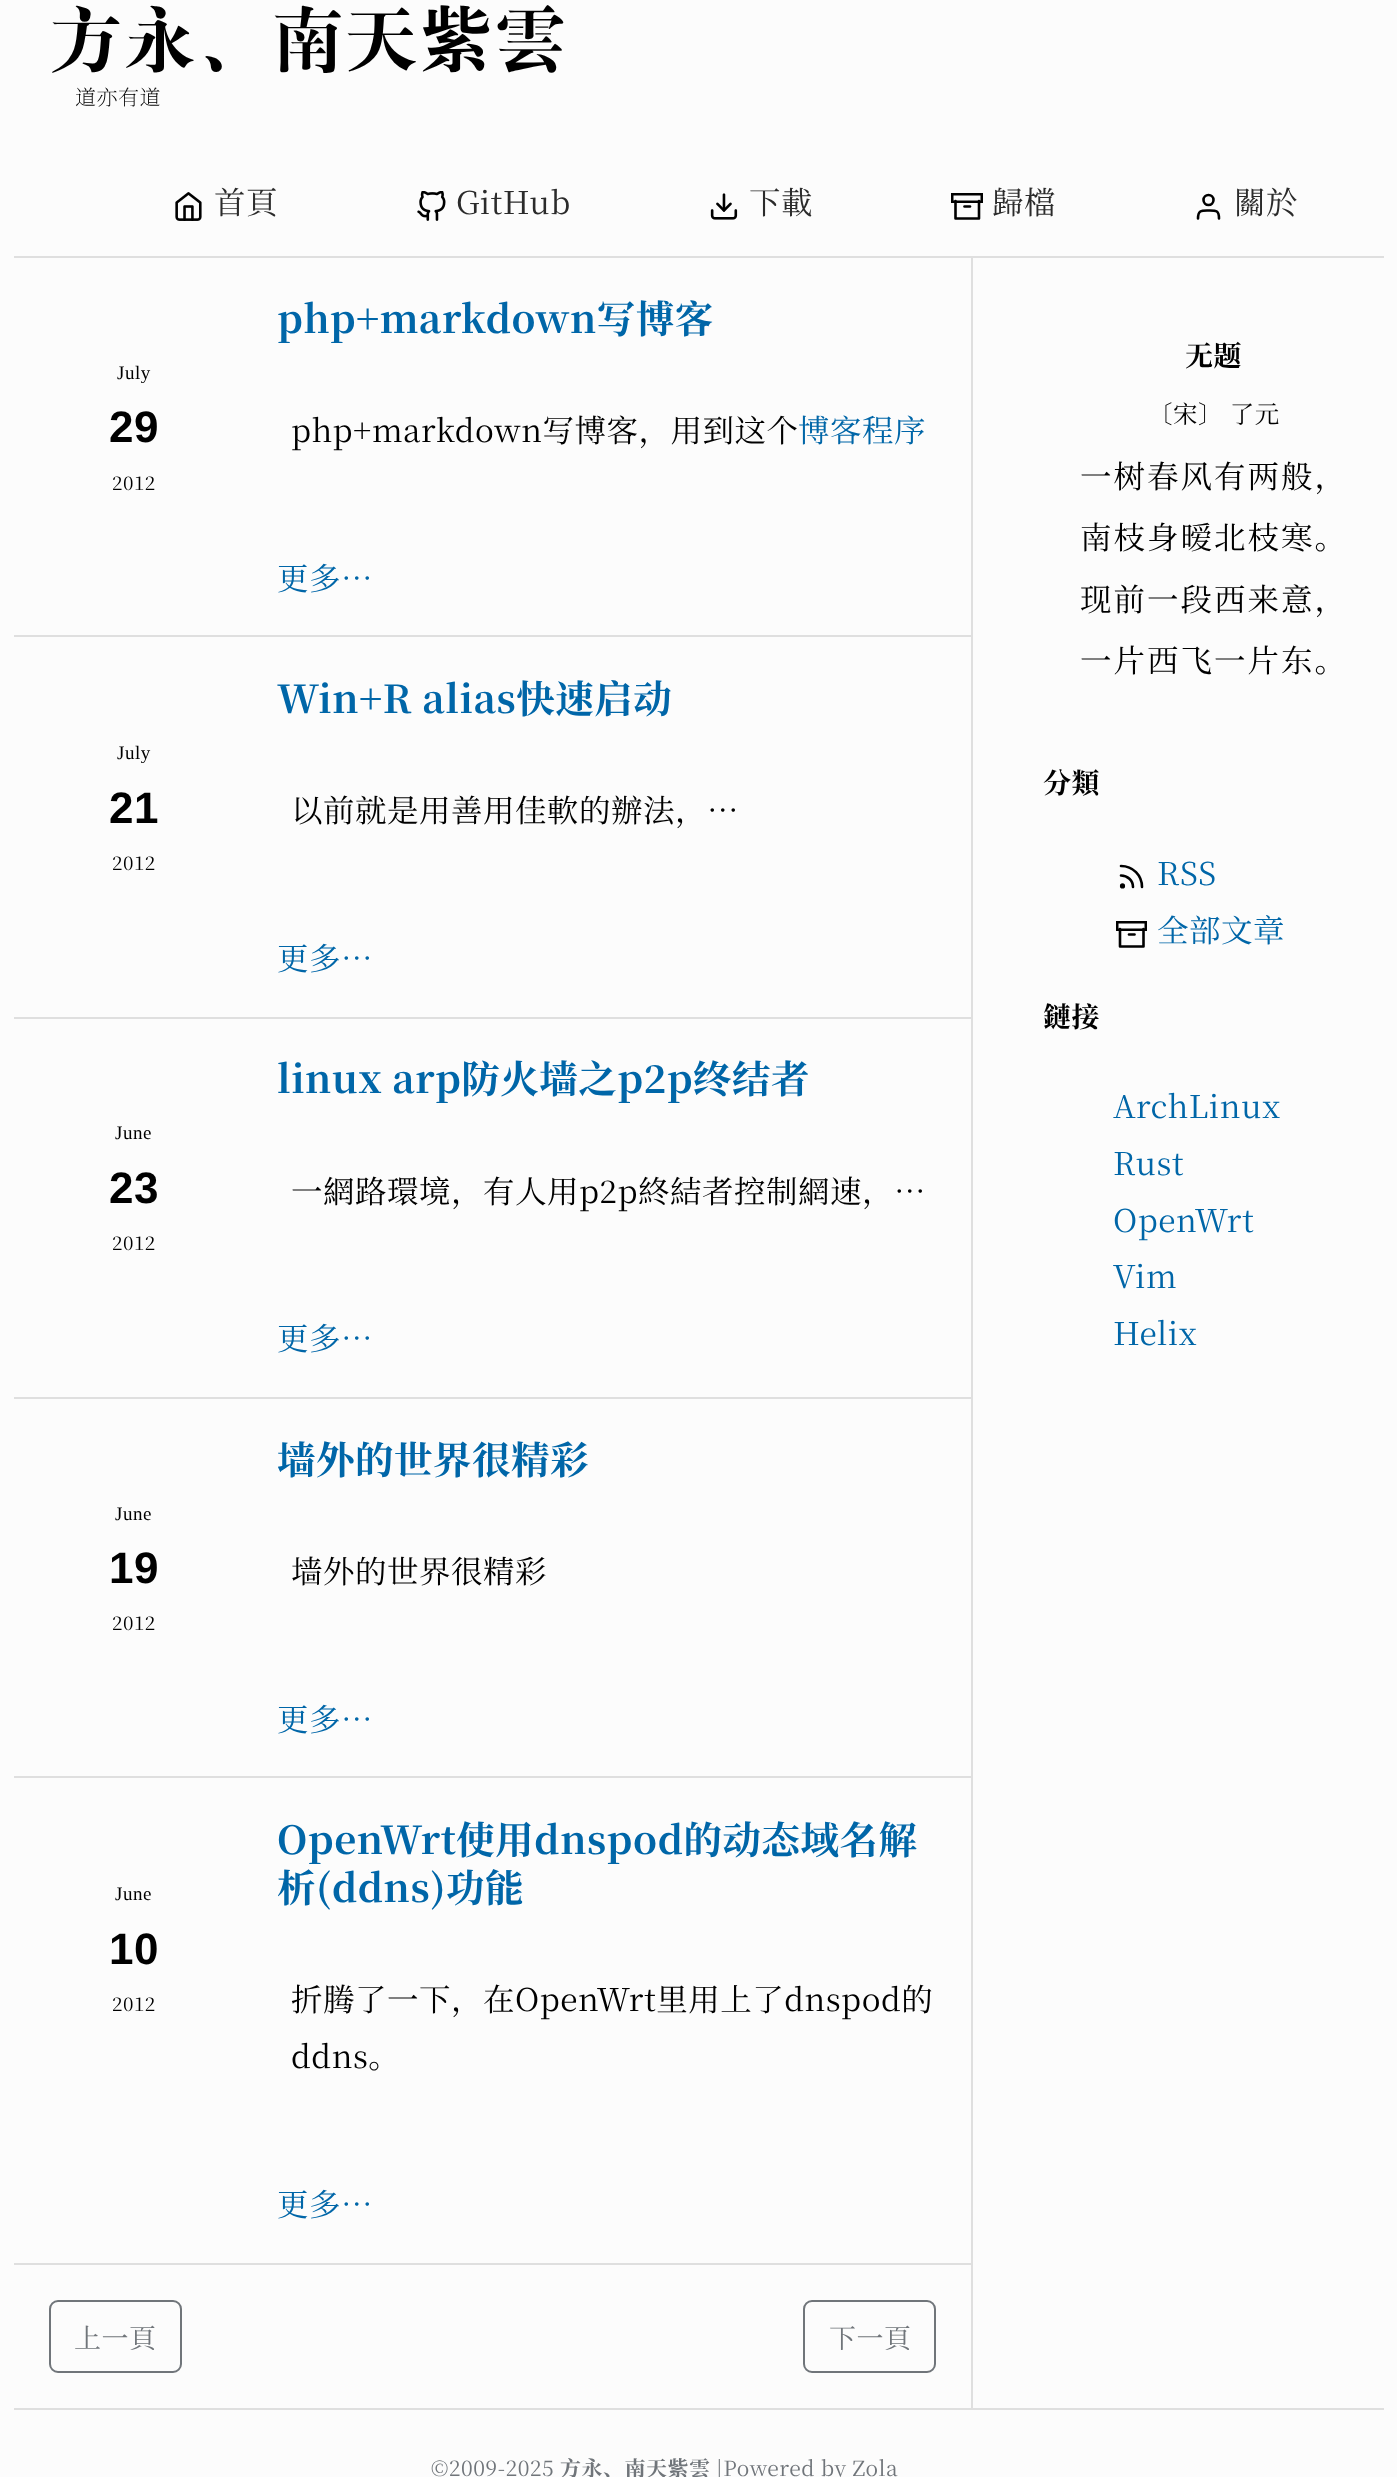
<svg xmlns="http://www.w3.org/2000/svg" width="1397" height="2477">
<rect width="100%" height="100%" fill="#fcfcfc"/>
<rect x="14" y="256" width="1370" height="2" fill="#dfdfdf"/>
<text x="49" y="61" style="font-family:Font;font-size:73.5px;letter-spacing:0.5px;fill:#000">方永、南天紫雲</text>
<text x="75" y="105" style="font-family:Noto Serif SC;font-size:21px;font-weight:200;letter-spacing:0.5px;fill:#000">道亦有道</text>
<image x="175" y="192" width="27" height="29" href="media/1.png"/>
<text x="214" y="214" style="font-family:Noto Serif SC;font-size:31.5px;letter-spacing:0.5px;fill:#2b2b2b">首頁</text>
<image x="417" y="191" width="29" height="30" href="media/2.png"/>
<text x="456" y="214" style="font-family:Noto Serif SC;font-size:31.5px;letter-spacing:0.5px;fill:#2b2b2b">GitHub</text>
<image x="710" y="193" width="28" height="27" href="media/3.png"/>
<text x="749" y="214" style="font-family:Noto Serif SC;font-size:31.5px;letter-spacing:0.5px;fill:#2b2b2b">下載</text>
<path d="M979 201v17.5h-23.5v-17.5" fill="none" stroke="#000" stroke-width="2.6" stroke-linecap="round" stroke-linejoin="round"/>
<rect x="952.25" y="194.25" width="29.5" height="7.5" fill="none" stroke="#000" stroke-width="2.5"/>
<text x="992" y="214" style="font-family:Noto Serif SC;font-size:31.5px;letter-spacing:0.5px;fill:#2b2b2b">歸檔</text>
<path d="M964.5 206.5h5.5" fill="none" stroke="#000" stroke-width="2.6" stroke-linecap="round" stroke-linejoin="round"/>
<circle cx="1208.5" cy="200" r="5" fill="none" stroke="#000" stroke-width="2.6"/>
<text x="1234" y="214" style="font-family:Noto Serif SC;font-size:31.5px;letter-spacing:0.5px;fill:#2b2b2b">關於</text>
<path d="M1219 218.5c0-8.5-3-8-10.5-8c-7 0-10.5-.5-10.5 8" fill="none" stroke="#000" stroke-width="2.6" stroke-linecap="round" stroke-linejoin="round"/>
<rect x="971" y="257" width="2" height="2151" fill="#dfdfdf"/>
<rect x="14" y="635" width="957" height="2" fill="#dfdfdf"/>
<text x="117" y="379" style="font-family:Liberation Serif;font-size:19px;letter-spacing:0.5px;fill:#000">July</text>
<text x="109" y="442" style="font-family:Liberation Sans;font-size:44px;font-weight:bold;letter-spacing:0.5px;fill:#000">29</text>
<text x="112" y="490" style="font-family:Noto Serif SC;font-size:19px;letter-spacing:0.5px;fill:#000">2012</text>
<text x="277" y="333" style="font-family:Noto Serif SC;font-size:38.5px;font-weight:bold;letter-spacing:0.5px;fill:#0066a8">php+markdown写博客</text>
<text x="291" y="442" style="font-family:Noto Serif SC;font-size:31.5px;letter-spacing:0.5px;fill:#000">php+markdown写博客，用到这个</text>
<text x="798" y="442" style="font-family:Noto Serif SC;font-size:31.5px;letter-spacing:0.5px;fill:#0066a8">博客程序</text>
<text x="277" y="590" style="font-family:Noto Serif SC;font-size:31.5px;letter-spacing:0.5px;fill:#0066a8">更多…</text>
<rect x="14" y="1017" width="957" height="2" fill="#dfdfdf"/>
<text x="117" y="759" style="font-family:Liberation Serif;font-size:19px;letter-spacing:0.5px;fill:#000">July</text>
<text x="109" y="823" style="font-family:Liberation Sans;font-size:44px;font-weight:bold;letter-spacing:0.5px;fill:#000">21</text>
<text x="112" y="870" style="font-family:Noto Serif SC;font-size:19px;letter-spacing:0.5px;fill:#000">2012</text>
<text x="277" y="713" style="font-family:Noto Serif SC;font-size:38.5px;font-weight:bold;letter-spacing:0.5px;fill:#0066a8">Win+R alias快速启动</text>
<text x="291" y="822" style="font-family:Noto Serif SC;font-size:31.5px;letter-spacing:0.5px;fill:#000">以前就是用善用佳軟的辦法，…</text>
<text x="277" y="970" style="font-family:Noto Serif SC;font-size:31.5px;letter-spacing:0.5px;fill:#0066a8">更多…</text>
<rect x="14" y="1397" width="957" height="2" fill="#dfdfdf"/>
<text x="115" y="1139" style="font-family:Liberation Serif;font-size:19px;letter-spacing:0.5px;fill:#000">June</text>
<text x="109" y="1203" style="font-family:Liberation Sans;font-size:44px;font-weight:bold;letter-spacing:0.5px;fill:#000">23</text>
<text x="112" y="1250" style="font-family:Noto Serif SC;font-size:19px;letter-spacing:0.5px;fill:#000">2012</text>
<text x="277" y="1093" style="font-family:Noto Serif SC;font-size:38.5px;font-weight:bold;letter-spacing:0.5px;fill:#0066a8">linux arp防火墙之p2p终结者</text>
<text x="291" y="1203" style="font-family:Noto Serif SC;font-size:31.5px;letter-spacing:0.5px;fill:#000">一網路環境，有人用p2p終結者控制網速，…</text>
<text x="277" y="1350" style="font-family:Noto Serif SC;font-size:31.5px;letter-spacing:0.5px;fill:#0066a8">更多…</text>
<rect x="14" y="1776" width="957" height="2" fill="#dfdfdf"/>
<text x="115" y="1520" style="font-family:Liberation Serif;font-size:19px;letter-spacing:0.5px;fill:#000">June</text>
<text x="109" y="1583" style="font-family:Liberation Sans;font-size:44px;font-weight:bold;letter-spacing:0.5px;fill:#000">19</text>
<text x="112" y="1630" style="font-family:Noto Serif SC;font-size:19px;letter-spacing:0.5px;fill:#000">2012</text>
<text x="277" y="1474" style="font-family:Noto Serif SC;font-size:38.5px;font-weight:bold;letter-spacing:0.5px;fill:#0066a8">墙外的世界很精彩</text>
<text x="291" y="1583" style="font-family:Noto Serif SC;font-size:31.5px;letter-spacing:0.5px;fill:#000">墙外的世界很精彩</text>
<text x="277" y="1731" style="font-family:Noto Serif SC;font-size:31.5px;letter-spacing:0.5px;fill:#0066a8">更多…</text>
<rect x="14" y="2263" width="957" height="2" fill="#dfdfdf"/>
<text x="115" y="1900" style="font-family:Liberation Serif;font-size:19px;letter-spacing:0.5px;fill:#000">June</text>
<text x="109" y="1964" style="font-family:Liberation Sans;font-size:44px;font-weight:bold;letter-spacing:0.5px;fill:#000">10</text>
<text x="112" y="2011" style="font-family:Noto Serif SC;font-size:19px;letter-spacing:0.5px;fill:#000">2012</text>
<text x="277" y="1854" style="font-family:Noto Serif SC;font-size:38.5px;font-weight:bold;letter-spacing:0.5px;fill:#0066a8">OpenWrt使用dnspod的动态域名解</text>
<text x="277" y="1902" style="font-family:Noto Serif SC;font-size:38.5px;font-weight:bold;letter-spacing:0.5px;fill:#0066a8">析(ddns)功能</text>
<text x="291" y="2011" style="font-family:Noto Serif SC;font-size:31.5px;letter-spacing:0.5px;fill:#000">折腾了一下，在OpenWrt里用上了dnspod的</text>
<text x="291" y="2068" style="font-family:Noto Serif SC;font-size:31.5px;letter-spacing:0.5px;fill:#000">ddns。</text>
<text x="277" y="2216" style="font-family:Noto Serif SC;font-size:31.5px;letter-spacing:0.5px;fill:#0066a8">更多…</text>
<rect x="50" y="2301" width="131" height="71" rx="8" fill="none" stroke="#70757a" stroke-width="2"/>
<text x="74" y="2348" style="font-family:Noto Serif SC;font-size:27px;letter-spacing:0.5px;fill:#70757a">上一頁</text>
<rect x="804" y="2301" width="131" height="71" rx="8" fill="none" stroke="#70757a" stroke-width="2"/>
<text x="829" y="2348" style="font-family:Noto Serif SC;font-size:27px;letter-spacing:0.5px;fill:#70757a">下一頁</text>
<text x="1185" y="366" style="font-family:Noto Serif SC;font-size:28px;font-weight:bold;letter-spacing:0.5px;fill:#000">无题</text>
<text x="1148" y="423" style="font-family:Noto Serif SC;font-size:24.5px;letter-spacing:0.5px;fill:#000">〔宋〕 了元</text>
<text x="1080" y="488" style="font-family:Noto Serif SC;font-size:31.5px;letter-spacing:2px;fill:#000">一树春风有两般，</text>
<text x="1080" y="549" style="font-family:Noto Serif SC;font-size:31.5px;letter-spacing:2px;fill:#000">南枝身暧北枝寒。</text>
<text x="1080" y="611" style="font-family:Noto Serif SC;font-size:31.5px;letter-spacing:2px;fill:#000">现前一段西来意，</text>
<text x="1080" y="672" style="font-family:Noto Serif SC;font-size:31.5px;letter-spacing:2px;fill:#000">一片西飞一片东。</text>
<text x="1043" y="793" style="font-family:Noto Serif SC;font-size:28px;font-weight:bold;letter-spacing:0.5px;fill:#000">分類</text>
<path d="M1121 875.5c6.5 0 12 5 12 11.5m-12-21c12 0 21 9.5 21 21" fill="none" stroke="#000" stroke-width="2.6" stroke-linecap="round" stroke-linejoin="round"/>
<text x="1157" y="885" style="font-family:Noto Serif SC;font-size:31.5px;letter-spacing:0.5px;fill:#0066a8">RSS</text>
<circle cx="1122.5" cy="885.9" r="1.3" fill="none" stroke="#000" stroke-width="2.6"/>
<path d="M1143.5 929v17.5h-23.5v-17.5" fill="none" stroke="#000" stroke-width="2.6" stroke-linecap="round" stroke-linejoin="round"/>
<rect x="1117.25" y="922.25" width="28.5" height="7.5" fill="none" stroke="#000" stroke-width="2.5"/>
<text x="1157" y="942" style="font-family:Noto Serif SC;font-size:31.5px;letter-spacing:0.5px;fill:#0066a8">全部文章</text>
<path d="M1129 934.5h5.5" fill="none" stroke="#000" stroke-width="2.6" stroke-linecap="round" stroke-linejoin="round"/>
<text x="1043" y="1027" style="font-family:Noto Serif SC;font-size:28px;font-weight:bold;letter-spacing:0.5px;fill:#000">鏈接</text>
<text x="1113" y="1118" style="font-family:Noto Serif SC;font-size:31.5px;letter-spacing:0.5px;fill:#0066a8">ArchLinux</text>
<text x="1113" y="1175" style="font-family:Noto Serif SC;font-size:31.5px;letter-spacing:0.5px;fill:#0066a8">Rust</text>
<text x="1113" y="1232" style="font-family:Noto Serif SC;font-size:31.5px;letter-spacing:0.5px;fill:#0066a8">OpenWrt</text>
<text x="1113" y="1288" style="font-family:Noto Serif SC;font-size:31.5px;letter-spacing:0.5px;fill:#0066a8">Vim</text>
<text x="1113" y="1345" style="font-family:Noto Serif SC;font-size:31.5px;letter-spacing:0.5px;fill:#0066a8">Helix</text>
<rect x="14" y="2408" width="1370" height="2" fill="#dfdfdf"/>
<text x="431" y="2476" style="font-family:Noto Serif SC;font-size:21px;letter-spacing:0.5px;fill:#70757a">©2009-2025</text>
<text x="560" y="2476" style="font-family:Noto Serif SC;font-size:21px;font-weight:bold;letter-spacing:0.5px;fill:#70757a">方永、南天紫雲</text>
<text x="716" y="2476" style="font-family:Noto Serif SC;font-size:21px;letter-spacing:0.5px;fill:#70757a">|Powered by Zola</text>
</svg>
